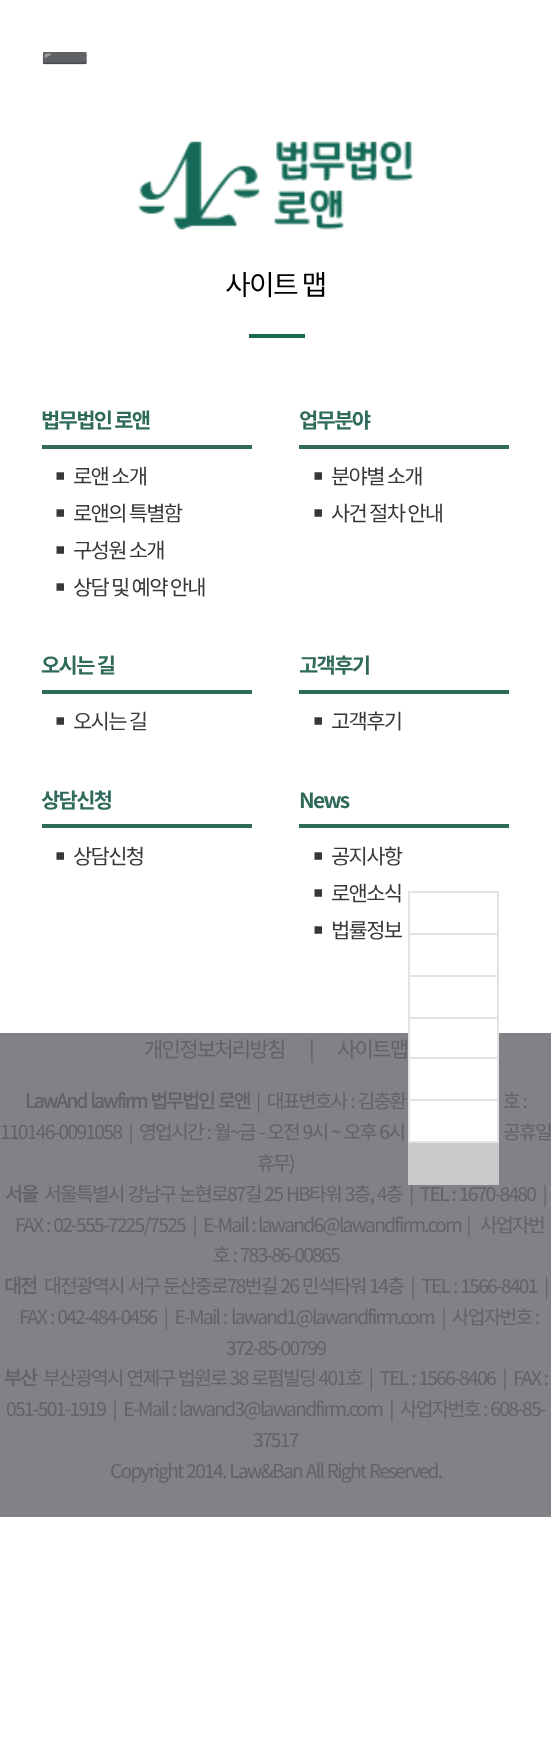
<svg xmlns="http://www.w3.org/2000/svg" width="551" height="1740">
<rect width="100%" height="100%" fill="#fff"/>
<text x="40" y="72" style="font-family:Noto Color Emoji;font-size:40px;letter-spacing:-1.75px;fill:#186956">➖</text>
<image x="138" y="141" width="275" height="89" href="media/1.png"/>
<text x="225" y="295" style="font-family:Noto Sans KR;font-size:28px;letter-spacing:-1.75px;fill:#000">사이트 맵</text>
<rect x="249" y="334" width="56" height="4" fill="#186956"/>
<rect x="42" y="445" width="210" height="4" fill="#2f6a5b"/>
<text x="41" y="428" style="font-family:'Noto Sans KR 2';font-size:21px;font-weight:bold;letter-spacing:-1.75px;fill:#2f6a5b">법무법인 로앤</text>
<text x="55" y="484" style="font-family:Chiron Hei HK;font-size:21px;letter-spacing:-1.75px;fill:#363739">￭</text>
<text x="73" y="484" style="font-family:Noto Sans KR;font-size:21px;letter-spacing:-1.75px;fill:#363739">로앤 소개</text>
<text x="55" y="521" style="font-family:Chiron Hei HK;font-size:21px;letter-spacing:-1.75px;fill:#363739">￭</text>
<text x="73" y="521" style="font-family:Noto Sans KR;font-size:21px;letter-spacing:-1.75px;fill:#363739">로앤의 특별함</text>
<text x="55" y="558" style="font-family:Chiron Hei HK;font-size:21px;letter-spacing:-1.75px;fill:#363739">￭</text>
<text x="73" y="558" style="font-family:Noto Sans KR;font-size:21px;letter-spacing:-1.75px;fill:#363739">구성원 소개</text>
<text x="55" y="595" style="font-family:Chiron Hei HK;font-size:21px;letter-spacing:-1.75px;fill:#363739">￭</text>
<text x="73" y="595" style="font-family:Noto Sans KR;font-size:21px;letter-spacing:-1.75px;fill:#363739">상담 및 예약 안내</text>
<rect x="299" y="445" width="210" height="4" fill="#2f6a5b"/>
<text x="299" y="428" style="font-family:'Noto Sans KR 2';font-size:21px;font-weight:bold;letter-spacing:-1.75px;fill:#2f6a5b">업무분야</text>
<text x="313" y="484" style="font-family:Chiron Hei HK;font-size:21px;letter-spacing:-1.75px;fill:#363739">￭</text>
<text x="331" y="484" style="font-family:Noto Sans KR;font-size:21px;letter-spacing:-1.75px;fill:#363739">분야별 소개</text>
<text x="313" y="521" style="font-family:Chiron Hei HK;font-size:21px;letter-spacing:-1.75px;fill:#363739">￭</text>
<text x="331" y="521" style="font-family:Noto Sans KR;font-size:21px;letter-spacing:-1.75px;fill:#363739">사건 절차 안내</text>
<rect x="42" y="690" width="210" height="4" fill="#2f6a5b"/>
<text x="41" y="673" style="font-family:'Noto Sans KR 2';font-size:21px;font-weight:bold;letter-spacing:-1.75px;fill:#2f6a5b">오시는 길</text>
<text x="55" y="729" style="font-family:Chiron Hei HK;font-size:21px;letter-spacing:-1.75px;fill:#363739">￭</text>
<text x="73" y="729" style="font-family:Noto Sans KR;font-size:21px;letter-spacing:-1.75px;fill:#363739">오시는 길</text>
<rect x="299" y="690" width="210" height="4" fill="#2f6a5b"/>
<text x="299" y="673" style="font-family:'Noto Sans KR 2';font-size:21px;font-weight:bold;letter-spacing:-1.75px;fill:#2f6a5b">고객후기</text>
<text x="313" y="729" style="font-family:Chiron Hei HK;font-size:21px;letter-spacing:-1.75px;fill:#363739">￭</text>
<text x="331" y="729" style="font-family:Noto Sans KR;font-size:21px;letter-spacing:-1.75px;fill:#363739">고객후기</text>
<rect x="42" y="824" width="210" height="4" fill="#2f6a5b"/>
<text x="41" y="808" style="font-family:'Noto Sans KR 2';font-size:21px;font-weight:bold;letter-spacing:-1.75px;fill:#2f6a5b">상담신청</text>
<text x="55" y="864" style="font-family:Chiron Hei HK;font-size:21px;letter-spacing:-1.75px;fill:#363739">￭</text>
<text x="73" y="864" style="font-family:Noto Sans KR;font-size:21px;letter-spacing:-1.75px;fill:#363739">상담신청</text>
<rect x="299" y="824" width="210" height="4" fill="#2f6a5b"/>
<text x="299" y="808" style="font-family:'Noto Sans KR 2';font-size:21px;font-weight:bold;letter-spacing:-1.75px;fill:#2f6a5b">News</text>
<text x="313" y="864" style="font-family:Chiron Hei HK;font-size:21px;letter-spacing:-1.75px;fill:#363739">￭</text>
<text x="331" y="864" style="font-family:Noto Sans KR;font-size:21px;letter-spacing:-1.75px;fill:#363739">공지사항</text>
<text x="313" y="901" style="font-family:Chiron Hei HK;font-size:21px;letter-spacing:-1.75px;fill:#363739">￭</text>
<text x="331" y="901" style="font-family:Noto Sans KR;font-size:21px;letter-spacing:-1.75px;fill:#363739">로앤소식</text>
<text x="313" y="938" style="font-family:Chiron Hei HK;font-size:21px;letter-spacing:-1.75px;fill:#363739">￭</text>
<text x="331" y="938" style="font-family:Noto Sans KR;font-size:21px;letter-spacing:-1.75px;fill:#363739">법률정보</text>
<rect y="1033" width="551" height="484" fill="#818286"/>
<rect x="410" y="1033" width="87" height="108" fill="#fff"/>
<rect x="408" y="891" width="91" height="2" fill="#e3e3e3"/>
<rect x="408" y="933" width="91" height="2" fill="#e3e3e3"/>
<rect x="408" y="975" width="91" height="2" fill="#e3e3e3"/>
<rect x="408" y="1017" width="91" height="2" fill="#e3e3e3"/>
<rect x="408" y="1057" width="91" height="2" fill="#e3e3e3"/>
<rect x="408" y="1099" width="91" height="2" fill="#e3e3e3"/>
<text x="44" y="1201" word-spacing="1.1" style="font-family:Noto Sans KR;font-size:19.25px;font-weight:100;letter-spacing:-1.75px;fill:#626369" xml:space="preserve">서울특별시 강남구 논현로87길 25 HB타워 3층, 4층  |  TEL : 1670-8480  |</text>
<rect x="497" y="1141" width="2" height="44" fill="#c9c9cb"/>
<rect x="497" y="1099" width="2" height="44" fill="#e3e3e3"/>
<rect x="497" y="1057" width="2" height="44" fill="#e3e3e3"/>
<rect x="497" y="1017" width="2" height="42" fill="#e3e3e3"/>
<rect x="497" y="975" width="2" height="44" fill="#e3e3e3"/>
<rect x="497" y="933" width="2" height="44" fill="#e3e3e3"/>
<rect x="497" y="891" width="2" height="44" fill="#e3e3e3"/>
<rect x="408" y="1183" width="91" height="2" fill="#c9c9cb"/>
<rect x="408" y="1141" width="2" height="44" fill="#c9c9cb"/>
<rect x="408" y="1141" width="91" height="2" fill="#e3e3e3"/>
<rect x="408" y="1099" width="2" height="44" fill="#e3e3e3"/>
<rect x="408" y="1057" width="2" height="44" fill="#e3e3e3"/>
<rect x="408" y="1017" width="2" height="42" fill="#e3e3e3"/>
<rect x="408" y="975" width="2" height="44" fill="#e3e3e3"/>
<rect x="408" y="933" width="2" height="44" fill="#e3e3e3"/>
<rect x="408" y="891" width="2" height="44" fill="#e3e3e3"/>
<rect x="410" y="1143" width="87" height="40" fill="#c9c9ca"/>
<text x="144" y="1057" style="font-family:Noto Sans KR;font-size:21px;font-weight:100;letter-spacing:-1.75px;fill:#626369">개인정보처리방침</text>
<text x="309" y="1057" style="font-family:Noto Sans KR;font-size:21px;font-weight:100;letter-spacing:-1.75px;fill:#626369">|</text>
<text x="337" y="1057" style="font-family:Noto Sans KR;font-size:21px;font-weight:100;letter-spacing:-1.75px;fill:#626369">사이트맵</text>
<text x="25" y="1108" word-spacing="1.1" style="font-family:Noto Sans KR;font-size:19.25px;font-weight:bold;letter-spacing:-1.75px;fill:#626369">LawAnd lawfirm 법무법인 로앤</text>
<text x="256" y="1108" word-spacing="1.1" style="font-family:Noto Sans KR;font-size:19.25px;font-weight:100;letter-spacing:-1.75px;fill:#626369" xml:space="preserve">|  대표변호사 : 김충환</text>
<text x="503" y="1108" word-spacing="1.1" style="font-family:Noto Sans KR;font-size:19.25px;font-weight:100;letter-spacing:-1.75px;fill:#626369">호 :</text>
<text x="0" y="1139" word-spacing="1.1" style="font-family:Noto Sans KR;font-size:19.25px;font-weight:100;letter-spacing:-1.75px;fill:#626369" xml:space="preserve">110146-0091058  |  영업시간 : 월~금 - 오전 9시 ~ 오후 6시</text>
<text x="503" y="1139" word-spacing="1.1" style="font-family:Noto Sans KR;font-size:19.25px;font-weight:100;letter-spacing:-1.75px;fill:#626369">공휴일</text>
<text x="257" y="1170" style="font-family:Noto Sans KR;font-size:19.25px;font-weight:100;letter-spacing:-1.75px;fill:#626369">휴무)</text>
<text x="5" y="1201" style="font-family:Noto Sans KR;font-size:19.25px;font-weight:bold;letter-spacing:-1.75px;fill:#626369">서울</text>
<text x="15" y="1232" word-spacing="1.1" style="font-family:Noto Sans KR;font-size:19.25px;font-weight:100;letter-spacing:-1.75px;fill:#626369" xml:space="preserve">FAX : 02-555-7225/7525  |  E-Mail :</text>
<text x="258" y="1232" style="font-family:Noto Sans KR;font-size:19.25px;font-weight:100;letter-spacing:-1.75px;fill:#626369" xml:space="preserve">lawand6@lawandfirm.com  |</text>
<text x="480" y="1232" style="font-family:Noto Sans KR;font-size:19.25px;font-weight:100;letter-spacing:-1.75px;fill:#626369">사업자번</text>
<text x="213" y="1262" word-spacing="1" style="font-family:Noto Sans KR;font-size:19.25px;font-weight:100;letter-spacing:-1.75px;fill:#626369">호 : 783-86-00865</text>
<text x="4" y="1293" style="font-family:Noto Sans KR;font-size:19.25px;font-weight:bold;letter-spacing:-1.75px;fill:#626369">대전</text>
<text x="44" y="1293" word-spacing="1.1" style="font-family:Noto Sans KR;font-size:19.25px;font-weight:100;letter-spacing:-1.75px;fill:#626369" xml:space="preserve">대전광역시 서구 둔산중로78번길 26 민석타워 14층  |  TEL : 1566-8401  |</text>
<text x="19" y="1324" word-spacing="1.1" style="font-family:Noto Sans KR;font-size:19.25px;font-weight:100;letter-spacing:-1.75px;fill:#626369" xml:space="preserve">FAX : 042-484-0456  |  E-Mail :</text>
<text x="231" y="1324" word-spacing="1" style="font-family:Noto Sans KR;font-size:19.25px;font-weight:100;letter-spacing:-1.75px;fill:#626369" xml:space="preserve">lawand1@lawandfirm.com  |  사업자번호 :</text>
<text x="226" y="1355" style="font-family:Noto Sans KR;font-size:19.25px;font-weight:100;letter-spacing:-1.75px;fill:#626369">372-85-00799</text>
<text x="4" y="1385" style="font-family:Noto Sans KR;font-size:19.25px;font-weight:bold;letter-spacing:-1.75px;fill:#626369">부산</text>
<text x="43" y="1385" word-spacing="1.1" style="font-family:Noto Sans KR;font-size:19.25px;font-weight:100;letter-spacing:-1.75px;fill:#626369" xml:space="preserve">부산광역시 연제구 법원로 38 로펌빌딩 401호  |  TEL : 1566-8406  |  FAX :</text>
<text x="6" y="1416" word-spacing="1.1" style="font-family:Noto Sans KR;font-size:19.25px;font-weight:100;letter-spacing:-1.75px;fill:#626369" xml:space="preserve">051-501-1919  |  E-Mail :</text>
<text x="179" y="1416" word-spacing="1" style="font-family:Noto Sans KR;font-size:19.25px;font-weight:100;letter-spacing:-1.75px;fill:#626369" xml:space="preserve">lawand3@lawandfirm.com  |  사업자번호 : 608-85-</text>
<text x="253" y="1447" style="font-family:Noto Sans KR;font-size:19.25px;font-weight:100;letter-spacing:-1.75px;fill:#626369">37517</text>
<text x="110" y="1478" word-spacing="1.1" style="font-family:Noto Sans KR;font-size:19.25px;font-weight:100;letter-spacing:-1.75px;fill:#626369">Copyright 2014. Law&amp;Ban All Right Reserved.</text>
</svg>
